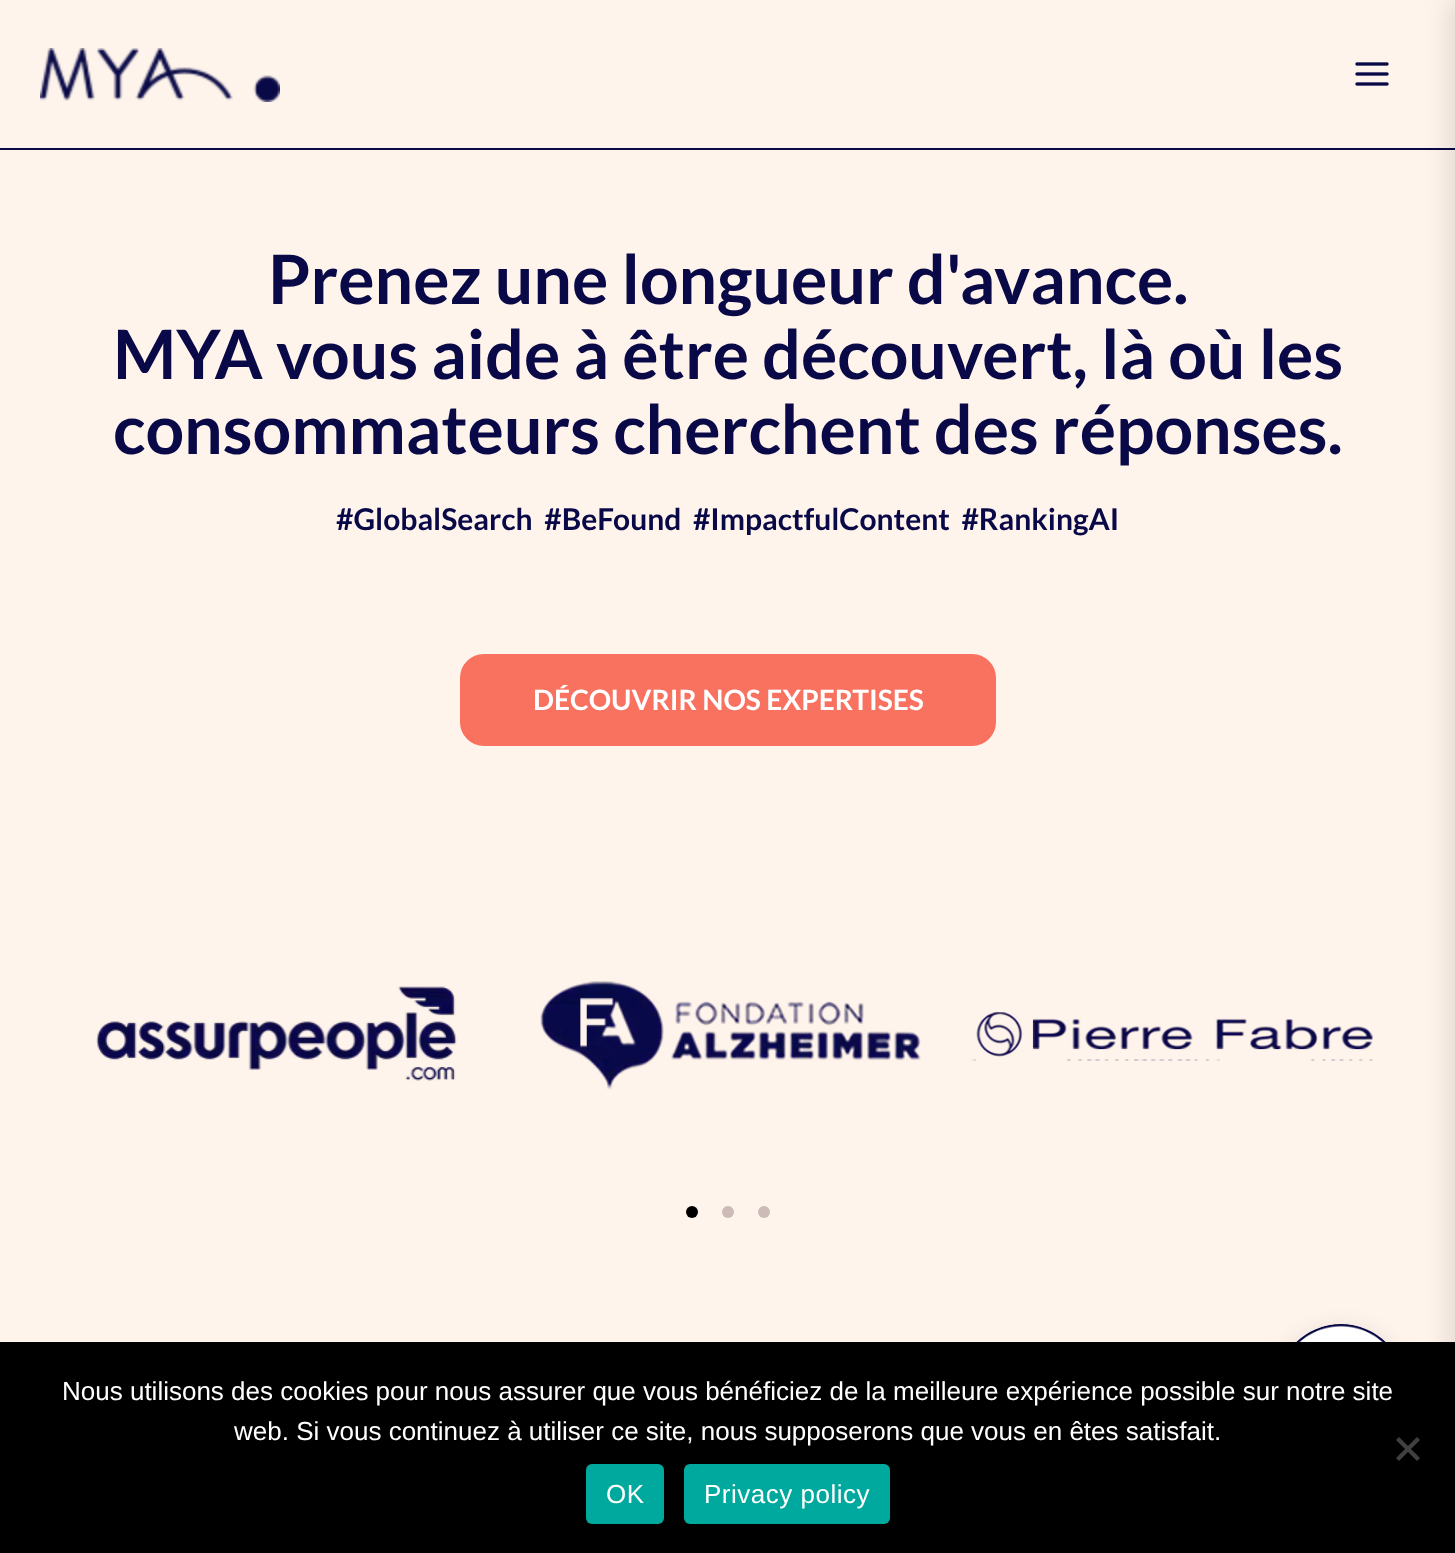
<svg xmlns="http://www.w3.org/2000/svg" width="1455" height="1553">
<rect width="100%" height="100%" fill="#fff4ec"/>
<rect y="148" width="1455" height="2" fill="#090948"/>
<image x="40" y="48" width="240" height="54" href="media/1.png"/>
<image x="1355" y="62" width="34" height="24" href="media/2.png"/>
<text x="268" y="304" style="font-family:Lato;font-size:68px;font-weight:bold;fill:#090948">Prenez une longueur d'avance.</text>
<text x="113" y="379" style="font-family:Lato;font-size:68px;font-weight:bold;fill:#090948">MYA vous aide à être découvert, là où les</text>
<text x="113" y="454" style="font-family:Lato;font-size:68px;font-weight:bold;fill:#090948">consommateurs cherchent des réponses.</text>
<text x="336" y="530" style="font-family:Lato;font-size:30px;font-weight:bold;fill:#090948" xml:space="preserve">#GlobalSearch  #BeFound  #ImpactfulContent  #RankingAI</text>
<rect x="461" y="655" width="534" height="90" rx="23" fill="#f9715f" stroke="#f9715f" stroke-width="2"/>
<text x="533" y="710" style="font-family:Lato;font-size:28px;font-weight:bold;fill:#fff">DÉCOUVRIR NOS EXPERTISES</text>
<image x="96" y="986" width="361" height="95" href="media/3.png"/>
<image x="540" y="981" width="381" height="109" href="media/4.png"/>
<image x="972" y="1012" width="401" height="49" href="media/5.png"/>
<circle cx="692" cy="1212" r="6" fill="#000"/>
<circle cx="728" cy="1212" r="6" fill="#ccbbb7"/>
<circle cx="764" cy="1212" r="6" fill="#ccbbb7"/>
<rect x="1448" width="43" height="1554" fill="#0000001a" filter="blur(12px)"/>
<rect x="1276" y="1332" width="130" height="132" rx="65" fill="#00000026" filter="blur(12px)"/>
<rect x="1276" y="1324" width="130" height="132" rx="65" fill="#fff"/>
<image x="1296" y="1324" width="90" height="18" href="media/6.png"/>
<rect y="1342" width="1455" height="211" fill="#000"/>
<text x="62" y="1400" style="font-family:Liberation Sans;font-size:26px;fill:#fff">Nous utilisons des cookies pour nous assurer que vous bénéficiez de la meilleure expérience possible sur notre site</text>
<text x="234" y="1440" style="font-family:Liberation Sans;font-size:26px;fill:#fff">web. Si vous continuez à utiliser ce site, nous supposerons que vous en êtes satisfait.</text>
<path d="M1417 1437l3 3l-21 21l-3-3z" fill="#404040"/>
<path d="M1396 1440l3-3l21 21l-3 3z" fill="#404040"/>
<rect x="586" y="1464" width="78" height="60" rx="6" fill="#00a99d"/>
<text x="606" y="1503" style="font-family:Liberation Sans;font-size:26px;letter-spacing:0.5px;fill:#fff">OK</text>
<rect x="684" y="1464" width="206" height="60" rx="6" fill="#00a99d"/>
<text x="704" y="1503" style="font-family:Liberation Sans;font-size:26px;letter-spacing:0.5px;fill:#fff">Privacy policy</text>
</svg>
